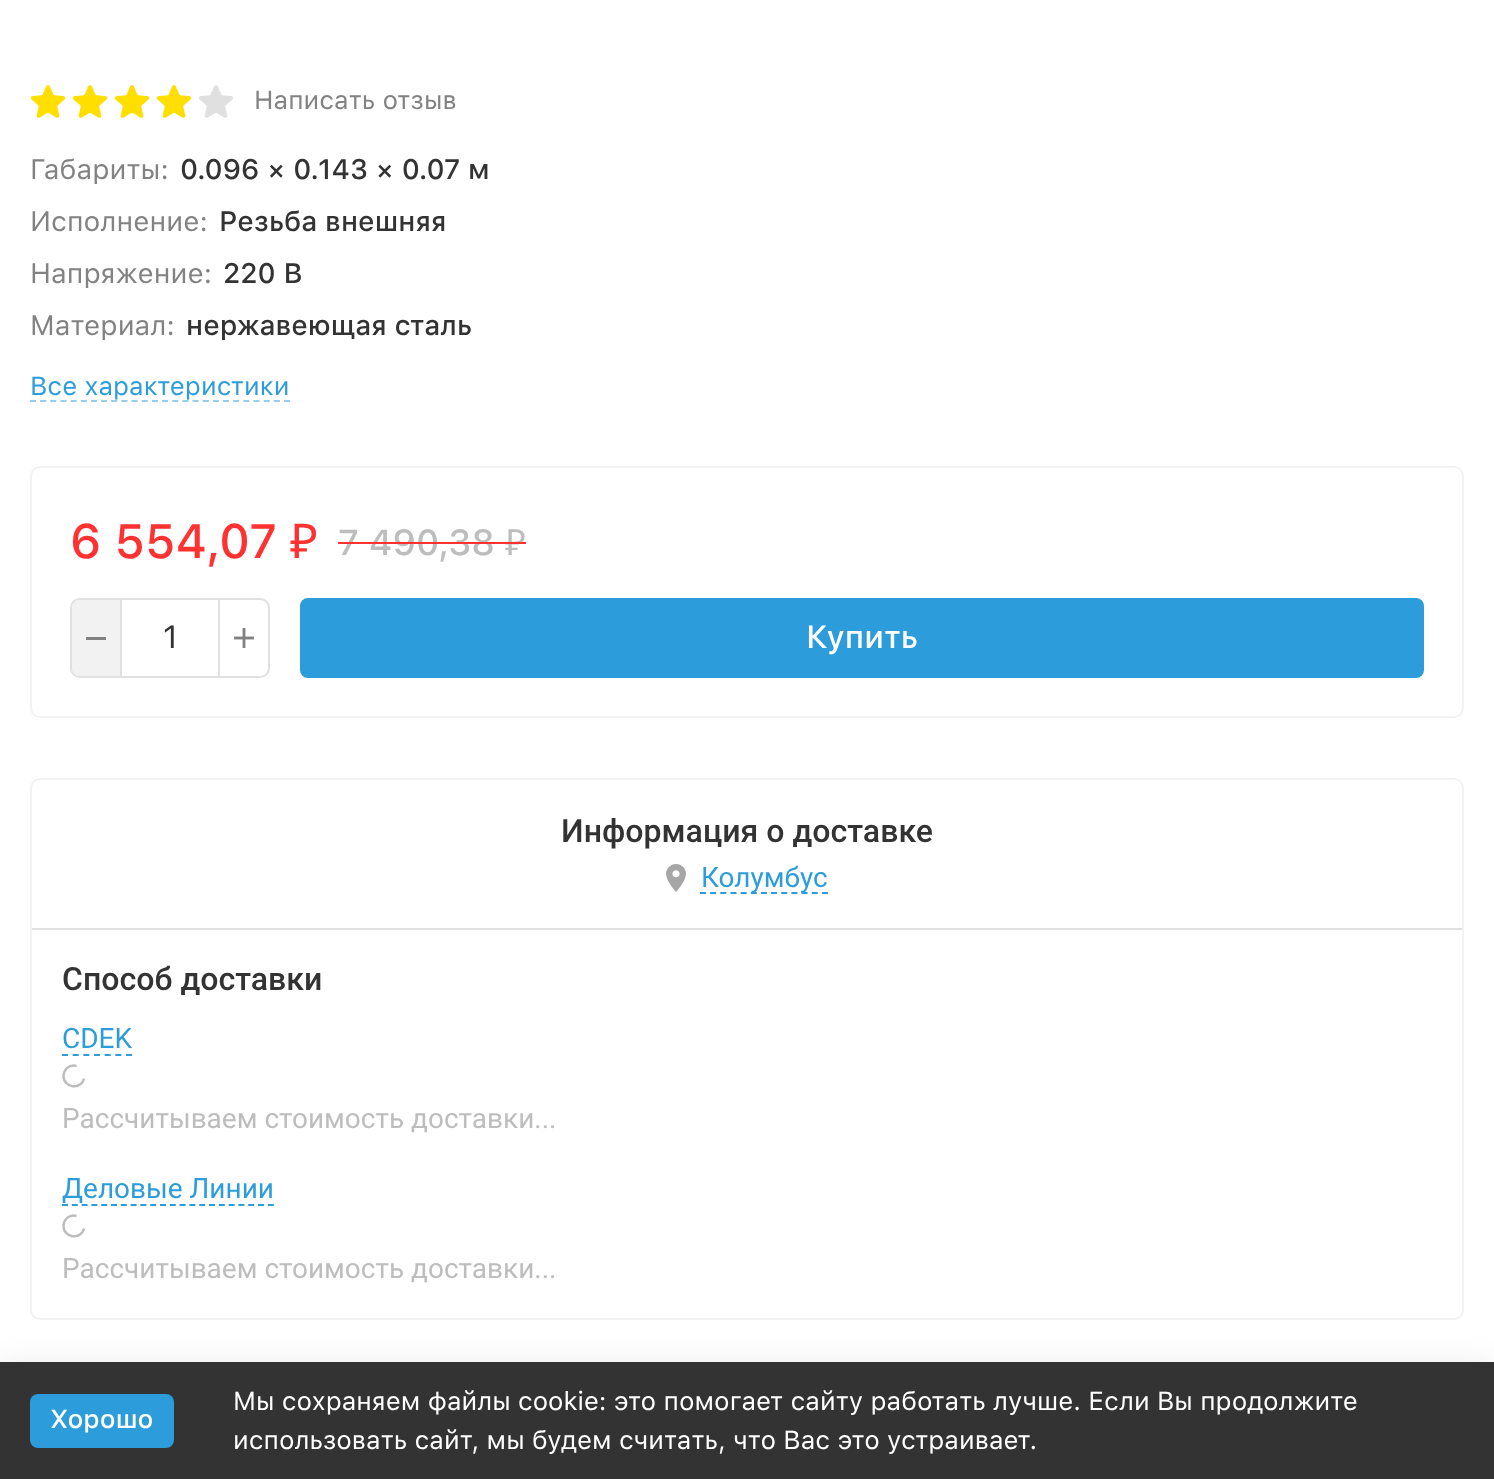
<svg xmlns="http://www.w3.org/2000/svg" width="1494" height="1479">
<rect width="100%" height="100%" fill="#fff"/>
<image x="30" y="85" width="36" height="33" href="media/1.png"/>
<image x="72" y="85" width="36" height="33" href="media/1.png"/>
<image x="114" y="85" width="36" height="33" href="media/1.png"/>
<image x="156" y="85" width="36" height="33" href="media/1.png"/>
<image x="199" y="85" width="34" height="33" href="media/2.png"/>
<text x="254" y="109" style="font-family:SF Pro Text;font-size:26px;fill:#828282">Написать отзыв</text>
<text x="30" y="179" style="font-family:SF Pro Text;font-size:28px;fill:#828282">Габариты:</text>
<text x="180" y="179" style="font-family:SF Pro Text;font-size:28px;font-weight:500;fill:#333">0.096 × 0.143 × 0.07 м</text>
<text x="30" y="231" style="font-family:SF Pro Text;font-size:28px;fill:#828282">Исполнение:</text>
<text x="219" y="231" style="font-family:SF Pro Text;font-size:28px;font-weight:500;fill:#333">Резьба внешняя</text>
<text x="30" y="283" style="font-family:SF Pro Text;font-size:28px;fill:#828282">Напряжение:</text>
<text x="223" y="283" style="font-family:SF Pro Text;font-size:28px;font-weight:500;fill:#333">220 В</text>
<text x="30" y="335" style="font-family:SF Pro Text;font-size:28px;fill:#828282">Материал:</text>
<text x="186" y="335" style="font-family:SF Pro Text;font-size:28px;font-weight:500;fill:#333">нержавеющая сталь</text>
<text x="30" y="395" style="font-family:SF Pro Text;font-size:26px;fill:#2d9cdb">Все характеристики</text>
<path d="M30 401h260" fill="none" stroke="#96cded" stroke-width="2" stroke-dasharray="6 4.16"/>
<rect x="31" y="467" width="1432" height="250" rx="9" fill="none" stroke="#f2f2f2" stroke-width="2"/>
<text x="70" y="558" style="font-family:SF Pro Text;font-size:48px;font-weight:500;fill:#ff3131">6 554,07</text>
<text x="290" y="558" style="font-family:Noto Sans;font-size:48px;fill:#ff3131">₽</text>
<text x="338" y="555" style="font-family:SF Pro Text;font-size:36px;font-weight:500;fill:#bdbdbd">7 490,38</text>
<text x="505" y="555" style="font-family:Noto Sans;font-size:36px;fill:#bdbdbd">₽</text>
<rect x="338" y="542" width="188" height="2" fill="#ff3131"/>
<rect x="71" y="599" width="198" height="78" rx="9" fill="none" stroke="#e0e0e0" stroke-width="2"/>
<path d="M80 600h40v76h-40c-4.5 0-8-3.5-8-8v-60c0-4.5 3.5-8 8-8z" fill="#f2f2f2"/>
<rect x="86" y="637" width="20" height="3" fill="#828282"/>
<path d="M122 600v76h-2v-76zm98 0v76h-2v-76z" fill="#e0e0e0" fill-rule="evenodd"/>
<text x="163" y="648" style="font-family:SF Pro Text;font-size:32px;fill:#333">1</text>
<image x="234" y="628" width="20" height="20" href="media/3.png"/>
<rect x="300" y="598" width="1124" height="80" rx="8" fill="#2d9cdb"/>
<text x="806" y="648" style="font-family:SF Pro Text;font-size:32px;font-weight:500;fill:#fff">Купить</text>
<rect x="31" y="779" width="1432" height="540" rx="9" fill="none" stroke="#f2f2f2" stroke-width="2"/>
<text x="561" y="842" style="font-family:Roboto;font-size:32px;font-weight:500;fill:#333">Информация о доставке</text>
<image x="666" y="864" width="20" height="28" href="media/4.png"/>
<path d="M700 893h128" fill="none" stroke="#2d9cdb" stroke-width="2" stroke-dasharray="6 4.16"/>
<text x="701" y="887" style="font-family:Roboto;font-size:28px;fill:#2d9cdb">Колумбус</text>
<rect x="32" y="928" width="1430" height="2" fill="#e0e0e0"/>
<text x="62" y="990" style="font-family:Roboto;font-size:32px;font-weight:500;fill:#333">Способ доставки</text>
<text x="62" y="1048" style="font-family:Roboto;font-size:28px;fill:#2d9cdb">CDEK</text>
<path d="M62 1055h70" fill="none" stroke="#2d9cdb" stroke-width="2" stroke-dasharray="6 4.66"/>
<path d="M84 1078.5c-3 12-21 9.5-20.5-3c0-3 1.5-5.5 3.5-7.5c2.5-2 6-3 9.5-2" fill="none" stroke="#bdbdbd" stroke-width="2.4"/>
<text x="62" y="1128" style="font-family:Roboto;font-size:28px;fill:#bdbdbd">Рассчитываем стоимость доставки...</text>
<text x="62" y="1198" style="font-family:Roboto;font-size:28px;fill:#2d9cdb">Деловые Линии</text>
<path d="M62 1205h212" fill="none" stroke="#2d9cdb" stroke-width="2" stroke-dasharray="6 3.8"/>
<path d="M84 1228.5c-3 12-21 9.5-20.5-3c0-3 1.5-5.5 3.5-7.5c2.5-2 6-3 9.5-2" fill="none" stroke="#bdbdbd" stroke-width="2.4"/>
<text x="62" y="1278" style="font-family:Roboto;font-size:28px;fill:#bdbdbd">Рассчитываем стоимость доставки...</text>
<rect y="1362" width="1494" height="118" fill="#00000012" filter="blur(15px)"/>
<rect y="1362" width="1494" height="117" fill="#333"/>
<rect x="30" y="1394" width="144" height="54" rx="8" fill="#2d9cdb"/>
<text x="50" y="1428" style="font-family:SF Pro Text;font-size:26px;font-weight:500;fill:#fff">Хорошо</text>
<text x="233" y="1410" style="font-family:SF Pro Text;font-size:26px;fill:#fff">Мы сохраняем файлы cookie: это помогает сайту работать лучше. Если Вы продолжите</text>
<text x="233" y="1449" style="font-family:SF Pro Text;font-size:26px;fill:#fff">использовать сайт, мы будем считать, что Вас это устраивает.</text>
</svg>
